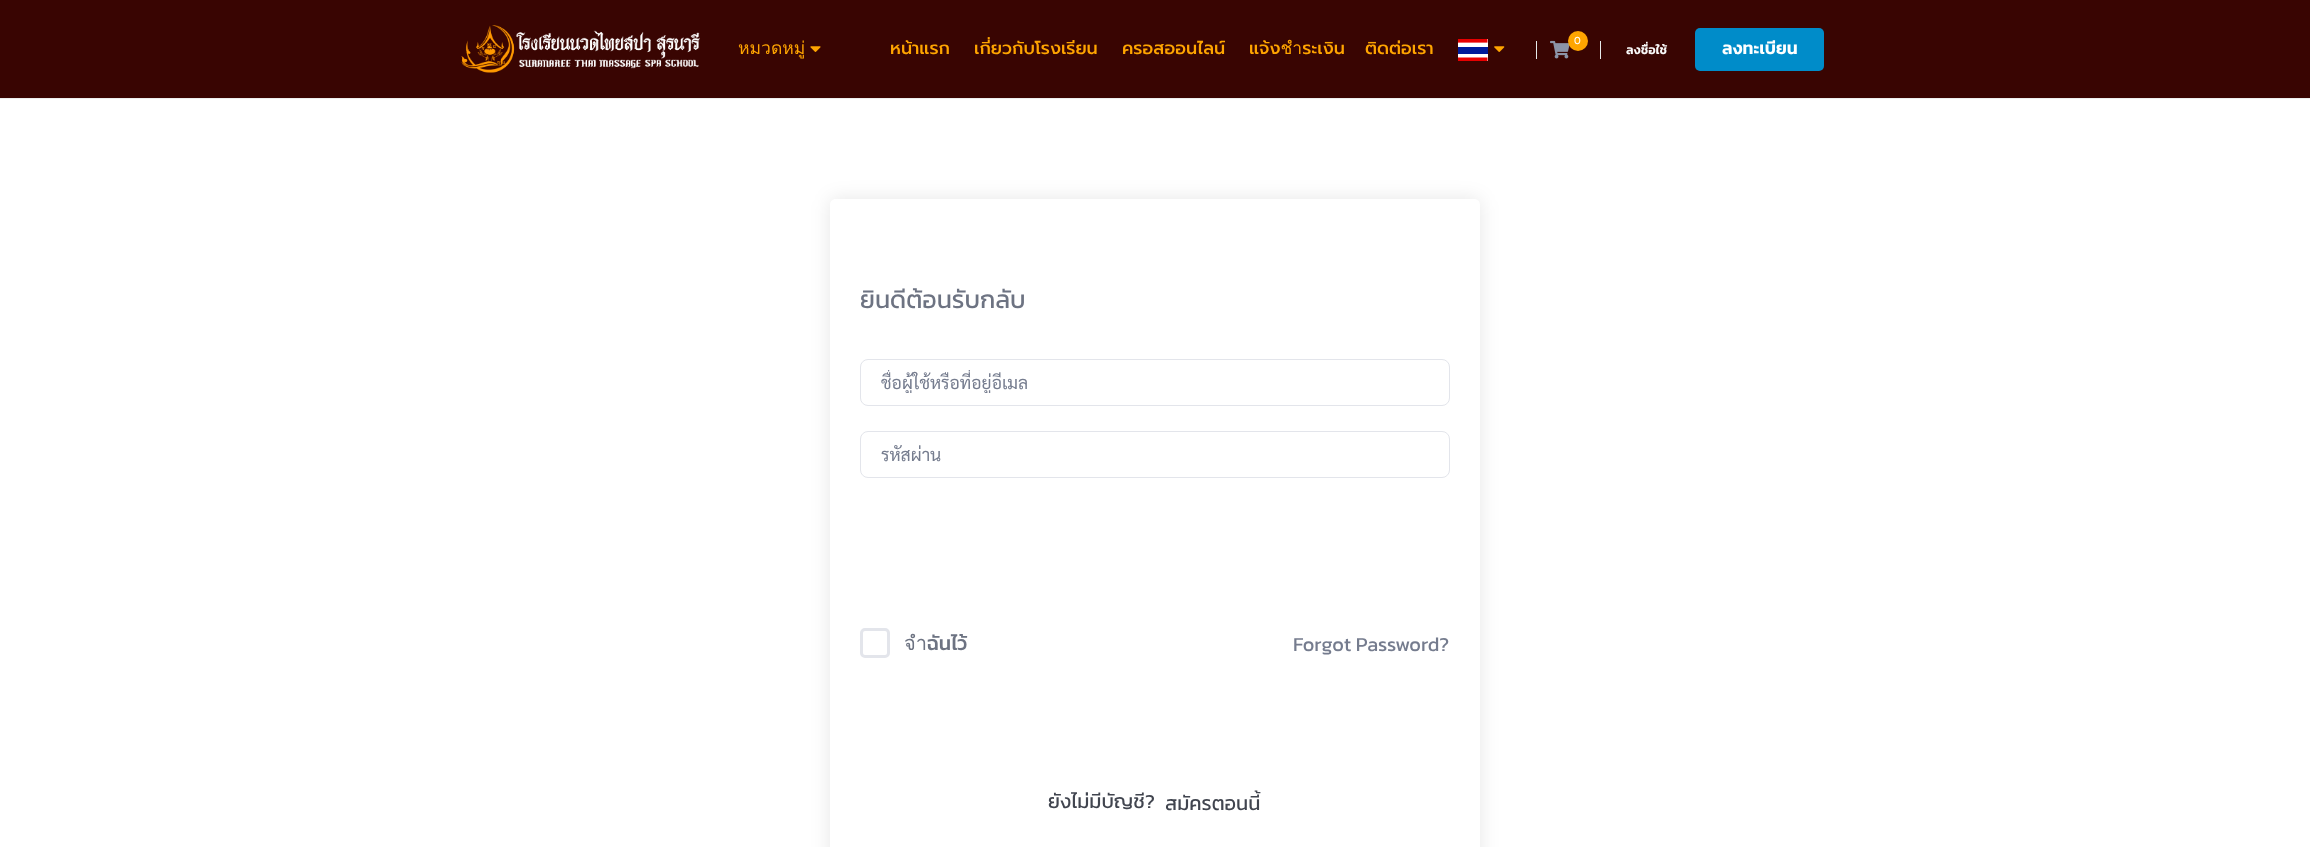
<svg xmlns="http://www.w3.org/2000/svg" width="2310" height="847">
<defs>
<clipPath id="clip1"><path d="M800 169h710v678h-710zm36 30h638c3.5 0 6 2.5 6 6v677c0 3.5-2.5 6-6 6h-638c-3.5 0-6-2.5-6-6v-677c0-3.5 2.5-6 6-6z" clip-rule="evenodd"/></clipPath>
<clipPath id="clip2"><rect x="881" y="370" width="548" height="23"/></clipPath>
</defs>
<rect width="100%" height="100%" fill="#fff"/>
<rect width="2310" height="98" fill="#390502"/>
<rect y="98" width="2310" height="1" fill="#eee"/>
<image x="461" y="25" width="239" height="48" href="media/1.png"/>
<text x="738" y="54" style="font-family:Loma;font-size:17.5px;fill:#ffa500">หมวดหมู่</text>
<image x="810" y="46" width="11" height="6" href="media/2.png"/>
<text x="890" y="54" style="font-family:Prompt;font-size:17.5px;font-weight:500;fill:#ffa500">หน้าแรก</text>
<text x="974" y="54" style="font-family:Prompt;font-size:17.5px;font-weight:500;fill:#ffa500">เกี่ยวกับโรงเรียน</text>
<text x="1122" y="54" style="font-family:Prompt;font-size:17.5px;font-weight:500;fill:#ffa500">ครอสออนไลน์</text>
<text x="1249" y="54" style="font-family:Prompt;font-size:17.5px;font-weight:500;fill:#ffa500">แจ้งชำระเงิน</text>
<text x="1365" y="54" style="font-family:Prompt;font-size:17.5px;font-weight:500;fill:#ffa500">ติดต่อเรา</text>
<image x="1458" y="39" width="30" height="22" href="media/3.png"/>
<image x="1494" y="46" width="11" height="6" href="media/4.png"/>
<rect x="1600" y="41" width="1" height="18" fill="#e6eaeb"/>
<rect x="1536" y="41" width="1" height="18" fill="#e6eaeb"/>
<image x="1550" y="40" width="20" height="19" href="media/5.png"/>
<circle cx="1578" cy="41" r="10" fill="#ffa500"/>
<text x="1574" y="44" style="font-family:Prompt;font-size:10px;fill:#fff">0</text>
<text x="1626" y="54" style="font-family:Kanit;font-size:12.5px;font-weight:600;fill:#f9f9f9">ลงชื่อใช้</text>
<rect x="1695" y="28" width="129" height="43" rx="5" fill="#008cc9"/>
<text x="1722" y="54" style="font-family:Kanit;font-size:17.5px;font-weight:600;fill:#fff">ลงทะเบียน</text>
<g clip-path="url(#clip1)">
<rect x="830" y="199" width="650" height="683" rx="6" fill="#0000001a" filter="blur(9.5px)"/>
</g>
<text x="860" y="308" style="font-family:Kanit;font-size:25px;fill:#6d7382">ยินดีต้อนรับกลับ</text>
<rect x="860.5" y="359.5" width="589" height="46" rx="7.5" fill="none" stroke="#e3e5eb"/>
<g clip-path="url(#clip2)">
<text x="881" y="389" style="font-family:Sarabun;font-size:17.5px;fill:#757c8e">ชื่อผู้ใช้หรือที่อยู่อีเมล</text>
</g>
<rect x="860.5" y="431.5" width="589" height="46" rx="7.5" fill="none" stroke="#e3e5eb"/>
<text x="881" y="461" style="font-family:Sarabun;font-size:17.5px;fill:#757c8e">รหัสผ่าน</text>
<rect x="861.5" y="629.5" width="27" height="27" rx="3.5" fill="none" stroke="#e3e5eb" stroke-width="3"/>
<text x="904" y="650" style="font-family:Kanit;font-size:20px;font-weight:500;fill:#6d7382">จำฉันไว้</text>
<text x="1293" y="651" style="font-family:Kanit;font-size:20px;fill:#757c8e">Forgot Password?</text>
<text x="1048" y="808" style="font-family:Kanit;font-size:20px;fill:#41454f">ยังไม่มีบัญชี?</text>
<text x="1165" y="810" style="font-family:Kanit;font-size:20px;fill:#41454f">สมัครตอนนี้</text>
</svg>
